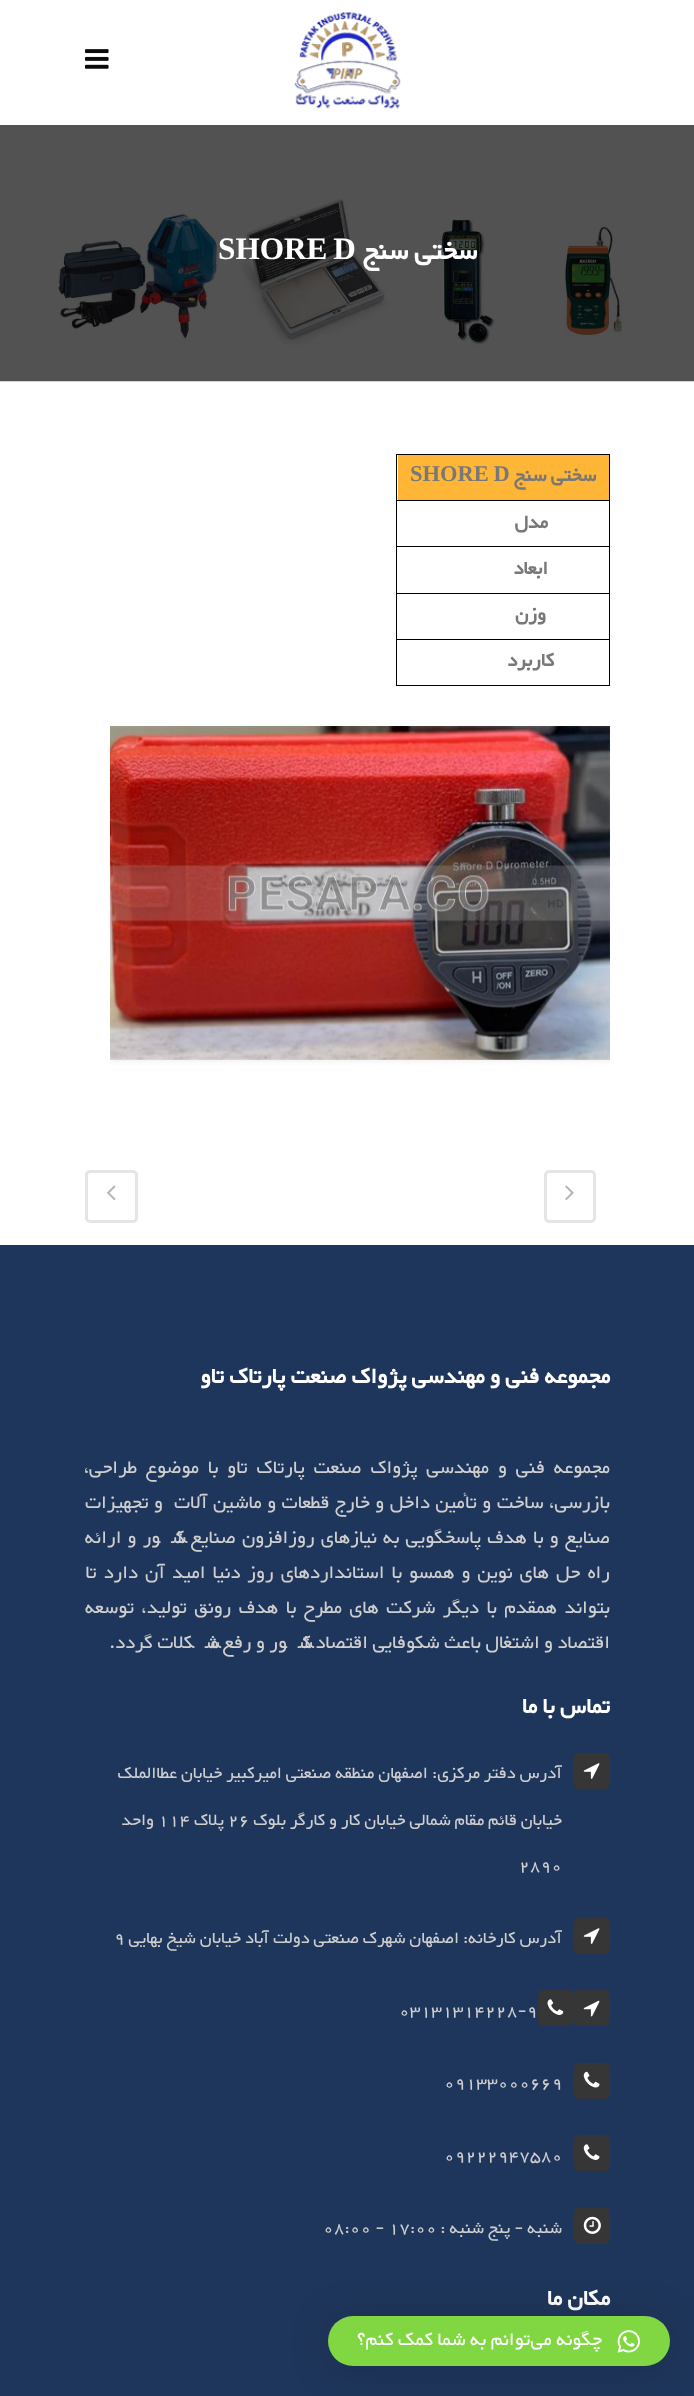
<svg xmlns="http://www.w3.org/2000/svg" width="694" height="2396">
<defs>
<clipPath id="clip1"><rect x="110" y="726" width="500" height="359"/></clipPath>
</defs>
<rect width="100%" height="100%" fill="#fff"/>
<image x="294" y="12" width="107" height="97" href="media/1.png"/>
<image x="85" y="49" width="24" height="20" href="media/2.png"/>
<image x="0" y="125" width="694" height="257" href="media/3.png"/>
<text x="477" y="259" style="font-family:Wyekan;font-size:31.25px;font-weight:bold;direction:rtl;fill:#fff">سختی سنج</text>
<text x="218" y="259" word-spacing="-2" style="font-family:Liberation Serif;font-size:31.25px;font-weight:bold;fill:#fff">SHORE D</text>
<rect x="398" y="455" width="211" height="45" fill="#ffb536"/>
<rect x="396" y="454" width="214" height="1" fill="#000"/>
<rect x="396" y="500" width="214" height="1" fill="#000"/>
<rect x="396" y="546" width="214" height="1" fill="#000"/>
<rect x="396" y="593" width="214" height="1" fill="#000"/>
<rect x="396" y="639" width="214" height="1" fill="#000"/>
<rect x="609" y="639" width="1" height="47" fill="#000"/>
<rect x="609" y="593" width="1" height="47" fill="#000"/>
<rect x="609" y="546" width="1" height="48" fill="#000"/>
<rect x="609" y="500" width="1" height="48" fill="#000"/>
<rect x="609" y="454" width="1" height="47" fill="#000"/>
<rect x="396" y="685" width="214" height="1" fill="#000"/>
<rect x="396" y="639" width="1" height="47" fill="#000"/>
<rect x="396" y="593" width="1" height="47" fill="#000"/>
<rect x="396" y="546" width="1" height="48" fill="#000"/>
<rect x="396" y="500" width="1" height="48" fill="#000"/>
<rect x="396" y="454" width="1" height="47" fill="#000"/>
<text x="596" y="481" style="font-family:Wyekan;font-size:22.5px;font-weight:bold;direction:rtl;fill:#787879">سختی سنج</text>
<text x="410" y="481" word-spacing="-1" style="font-family:Liberation Serif;font-size:22.5px;font-weight:bold;fill:#787879">SHORE D</text>
<text x="548" y="528" style="font-family:Wyekan;font-size:22.5px;font-weight:bold;direction:rtl;fill:#787879">مدل</text>
<text x="548" y="574" style="font-family:Wyekan;font-size:22.5px;font-weight:bold;direction:rtl;fill:#787879">ابعاد</text>
<text x="546" y="620" style="font-family:Wyekan;font-size:22.5px;font-weight:bold;direction:rtl;fill:#787879">وزن</text>
<text x="554" y="666" style="font-family:Wyekan;font-size:22.5px;font-weight:bold;direction:rtl;fill:#787879">کاربرد</text>
<g clip-path="url(#clip1)">
<rect x="110" y="726" width="500" height="334" fill="#00000017" filter="blur(3px)"/>
</g>
<image x="110" y="726" width="500" height="334" href="media/4.png"/>
<rect x="545.5" y="1171.5" width="49" height="50" rx="3.5" fill="none" stroke="#e5e5e5" stroke-width="3"/>
<image x="565" y="1185" width="9" height="15" href="media/5.png"/>
<rect x="86.5" y="1171.5" width="50" height="50" rx="3.5" fill="none" stroke="#e5e5e5" stroke-width="3"/>
<image x="107" y="1185" width="9" height="15" href="media/6.png"/>
<rect y="1245" width="694" height="1151" fill="#1f365c"/>
<text x="610" y="1383" style="font-family:Wyekan;font-size:26.25px;font-weight:bold;direction:rtl;fill:#fff">مجموعه فنی و مهندسی پژواک صنعت پارتاک تاو</text>
<text x="610" y="1473" word-spacing="4.5" style="font-family:Wyekan;font-size:22.5px;direction:rtl;fill:#cfcfcf">مجموعه فنی و مهندسی پژواک صنعت پارتاک تاو با موضوع طراحی،</text>
<text x="610" y="1508" word-spacing="1.1" style="font-family:Wyekan;font-size:22.5px;direction:rtl;fill:#cfcfcf" xml:space="preserve">بازرسی، ساخت و تأمین داخل و خارج قطعات و ماشین آلات  و تجهیزات</text>
<text x="610" y="1543" word-spacing="1.75" style="font-family:Wyekan;font-size:22.5px;direction:rtl;fill:#cfcfcf">صنایع و با هدف پاسخگویی به نیازهای روزافزون صنایع کشور و ارائه</text>
<text x="610" y="1578" word-spacing="2.6" style="font-family:Wyekan;font-size:22.5px;direction:rtl;fill:#cfcfcf">راه حل های نوین و همسو با استانداردهای روز دنیا امید آن دارد تا</text>
<text x="610" y="1613" word-spacing="3" style="font-family:Wyekan;font-size:22.5px;direction:rtl;fill:#cfcfcf">بتواند همقدم با دیگر شرکت های مطرح با هدف رونق تولید، توسعه</text>
<text x="610" y="1648" style="font-family:Wyekan;font-size:22.5px;direction:rtl;fill:#cfcfcf">اقتصاد و اشتغال باعث شکوفایی اقتصاد کشور و رفع مشکلات گردد.</text>
<text x="610" y="1713" style="font-family:Wyekan;font-size:26.25px;font-weight:bold;direction:rtl;fill:#fff">تماس با ما</text>
<rect x="574.5" y="1753.5" width="35" height="35" rx="4.5" fill="#363636" stroke="#363636"/>
<image x="583" y="1763" width="17" height="16" href="media/7.png"/>
<text x="562" y="1778" style="font-family:Wyekan;font-size:20px;direction:rtl;fill:#cfcfcf">آدرس دفتر مرکزی: اصفهان منطقه صنعتی امیرکبیر خیابان عطاالملک</text>
<text x="562" y="1825" style="font-family:Wyekan;font-size:20px;direction:rtl;fill:#cfcfcf">خیابان قائم مقام شمالی خیابان کار و کارگر بلوک</text>
<text x="228" y="1825" style="font-family:Wyekan;font-size:20px;fill:#cfcfcf">26</text>
<text x="224" y="1825" style="font-family:Wyekan;font-size:20px;direction:rtl;fill:#cfcfcf">پلاک</text>
<text x="158" y="1825" style="font-family:Wyekan;font-size:20px;fill:#cfcfcf">114</text>
<text x="154" y="1825" style="font-family:Wyekan;font-size:20px;direction:rtl;fill:#cfcfcf">واحد</text>
<text x="519" y="1871" style="font-family:Wyekan;font-size:20px;fill:#cfcfcf">2890</text>
<rect x="574.5" y="1918.5" width="35" height="35" rx="4.5" fill="#363636" stroke="#363636"/>
<image x="583" y="1928" width="17" height="16" href="media/7.png"/>
<text x="562" y="1943" style="font-family:Wyekan;font-size:20px;direction:rtl;fill:#cfcfcf">آدرس کارخانه: اصفهان شهرک صنعتی دولت آباد خیابان شیخ بهایی</text>
<text x="114" y="1943" style="font-family:Wyekan;font-size:20px;fill:#cfcfcf">9</text>
<rect x="574.5" y="1990.5" width="35" height="35" rx="4.5" fill="#363636" stroke="#363636"/>
<image x="583" y="2000" width="17" height="17" href="media/8.png"/>
<rect x="538.5" y="1990.5" width="35" height="35" rx="4.5" fill="#363636" stroke="#363636"/>
<image x="547" y="1999" width="17" height="16" href="media/9.png"/>
<text x="399" y="2016" style="font-family:Wyekan;font-size:20px;fill:#cfcfcf">03131314228-9</text>
<rect x="574.5" y="2063.5" width="35" height="35" rx="4.5" fill="#363636" stroke="#363636"/>
<image x="583" y="2071" width="17" height="17" href="media/10.png"/>
<text x="444" y="2088" style="font-family:Wyekan;font-size:20px;fill:#cfcfcf">09133000669</text>
<rect x="574.5" y="2135.5" width="35" height="35" rx="4.5" fill="#363636" stroke="#363636"/>
<image x="583" y="2144" width="17" height="16" href="media/11.png"/>
<text x="444" y="2161" style="font-family:Wyekan;font-size:20px;fill:#cfcfcf">09222947580</text>
<rect x="574.5" y="2208.5" width="35" height="35" rx="4.5" fill="#363636" stroke="#363636"/>
<image x="583" y="2216" width="18" height="18" href="media/12.png"/>
<text x="562" y="2233" style="font-family:Wyekan;font-size:20px;direction:rtl;fill:#cfcfcf">شنبه - پنج شنبه :</text>
<text x="323" y="2233" style="font-family:Wyekan;font-size:20px;fill:#cfcfcf">08:00 - 17:00</text>
<text x="610" y="2305" style="font-family:Wyekan;font-size:26.25px;font-weight:bold;direction:rtl;fill:#fff">مکان ما</text>
<rect x="328" y="2319" width="342" height="50" rx="25" fill="#00000029" filter="blur(20px)"/>
<rect x="328" y="2316" width="342" height="50" rx="25" fill="#81d742"/>
<image x="617" y="2330" width="23" height="23" href="media/13.png"/>
<text x="602" y="2345" style="font-family:Wyekan;font-size:22.5px;direction:rtl;fill:#fff">چگونه می‌توانم به شما کمک کنم؟</text>
</svg>
